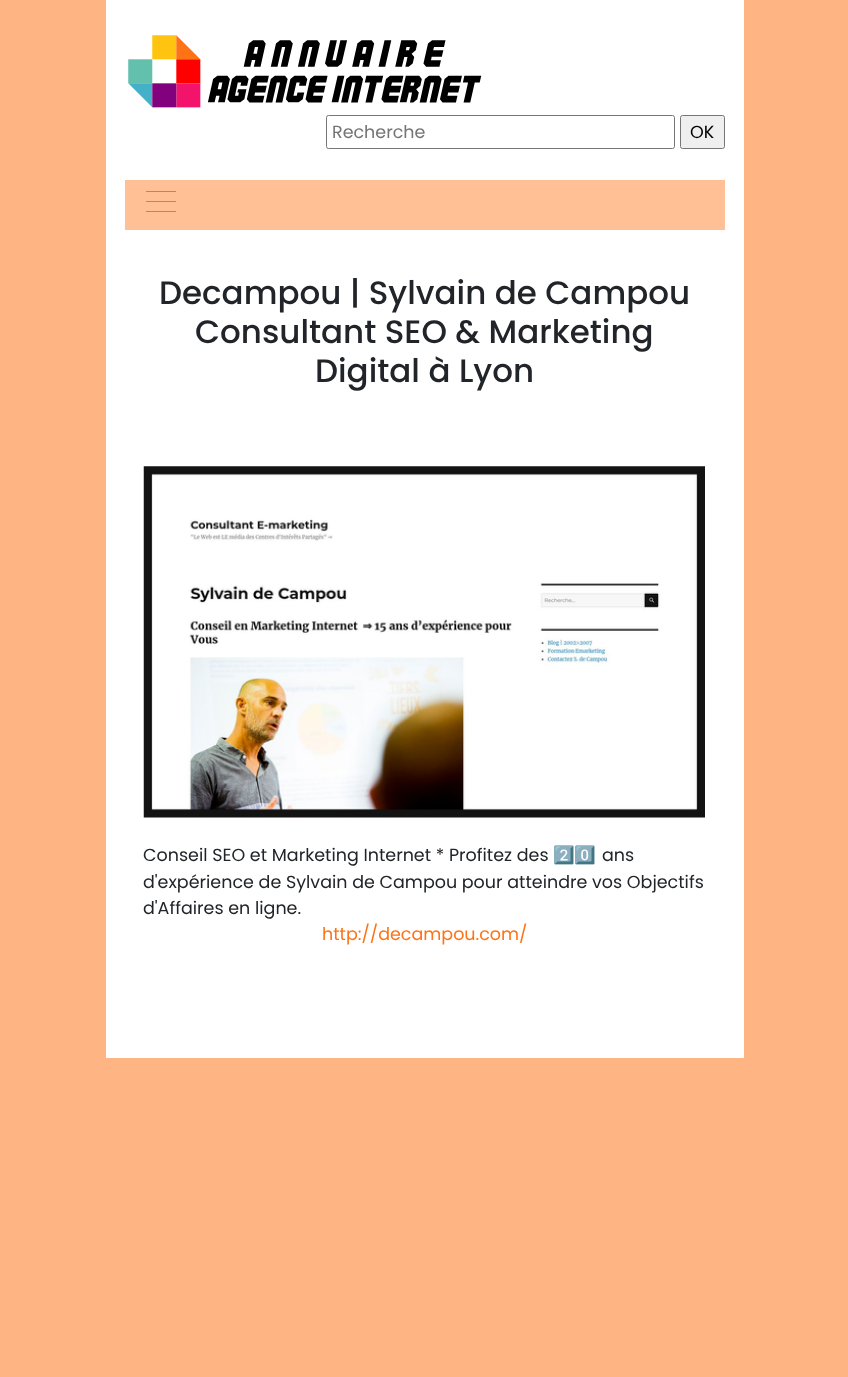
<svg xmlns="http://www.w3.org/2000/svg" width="848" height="1377">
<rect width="100%" height="100%" fill="#ffb583"/>
<rect x="106" width="638" height="1058" fill="#fff"/>
<image x="128" y="35" width="354" height="73" href="media/1.png"/>
<rect x="326.5" y="115.5" width="348" height="33" rx="2" fill="none" stroke="#767676"/>
<text x="332" y="138" style="font-family:Poppins;font-size:17.5px;fill:#757575">Recherche</text>
<rect x="680.5" y="115.5" width="44" height="33" rx="2" fill="#efefef" stroke="#767676"/>
<text x="690" y="138" style="font-family:Poppins;font-size:17.5px;fill:#000">OK</text>
<rect x="125" y="180" width="600" height="50" fill="#ffc095"/>
<rect x="146" y="191" width="30" height="1" fill="#fe7315"/>
<rect x="146" y="201" width="30" height="1" fill="#fe7315"/>
<rect x="146" y="211" width="30" height="1" fill="#fe7315"/>
<text x="159" y="304" style="font-family:Poppins;font-size:32.5px;font-weight:500;fill:#212529">Decampou | Sylvain de Campou</text>
<text x="195" y="343" style="font-family:Poppins;font-size:32.5px;font-weight:500;fill:#212529">Consultant SEO &amp; Marketing</text>
<text x="315" y="382" style="font-family:Poppins;font-size:32.5px;font-weight:500;fill:#212529">Digital à Lyon</text>
<image x="143" y="466" width="562" height="352" href="media/2.png"/>
<text x="143" y="861" style="font-family:Poppins;font-size:17.5px;fill:#212529">Conseil SEO et Marketing Internet * Profitez des</text>
<text x="553" y="861" style="font-family:Noto Color Emoji;font-size:17.5px;fill:#212529">2️⃣0️⃣</text>
<text x="602" y="861" style="font-family:Poppins;font-size:17.5px;fill:#212529">ans</text>
<text x="143" y="888" style="font-family:Poppins;font-size:17.5px;fill:#212529">d'expérience de Sylvain de Campou pour atteindre vos Objectifs</text>
<text x="143" y="914" style="font-family:Poppins;font-size:17.5px;fill:#212529">d'Affaires en ligne.</text>
<text x="322" y="940" style="font-family:Poppins;font-size:17.5px;fill:#fe7315">http://decampou.com/</text>
</svg>
